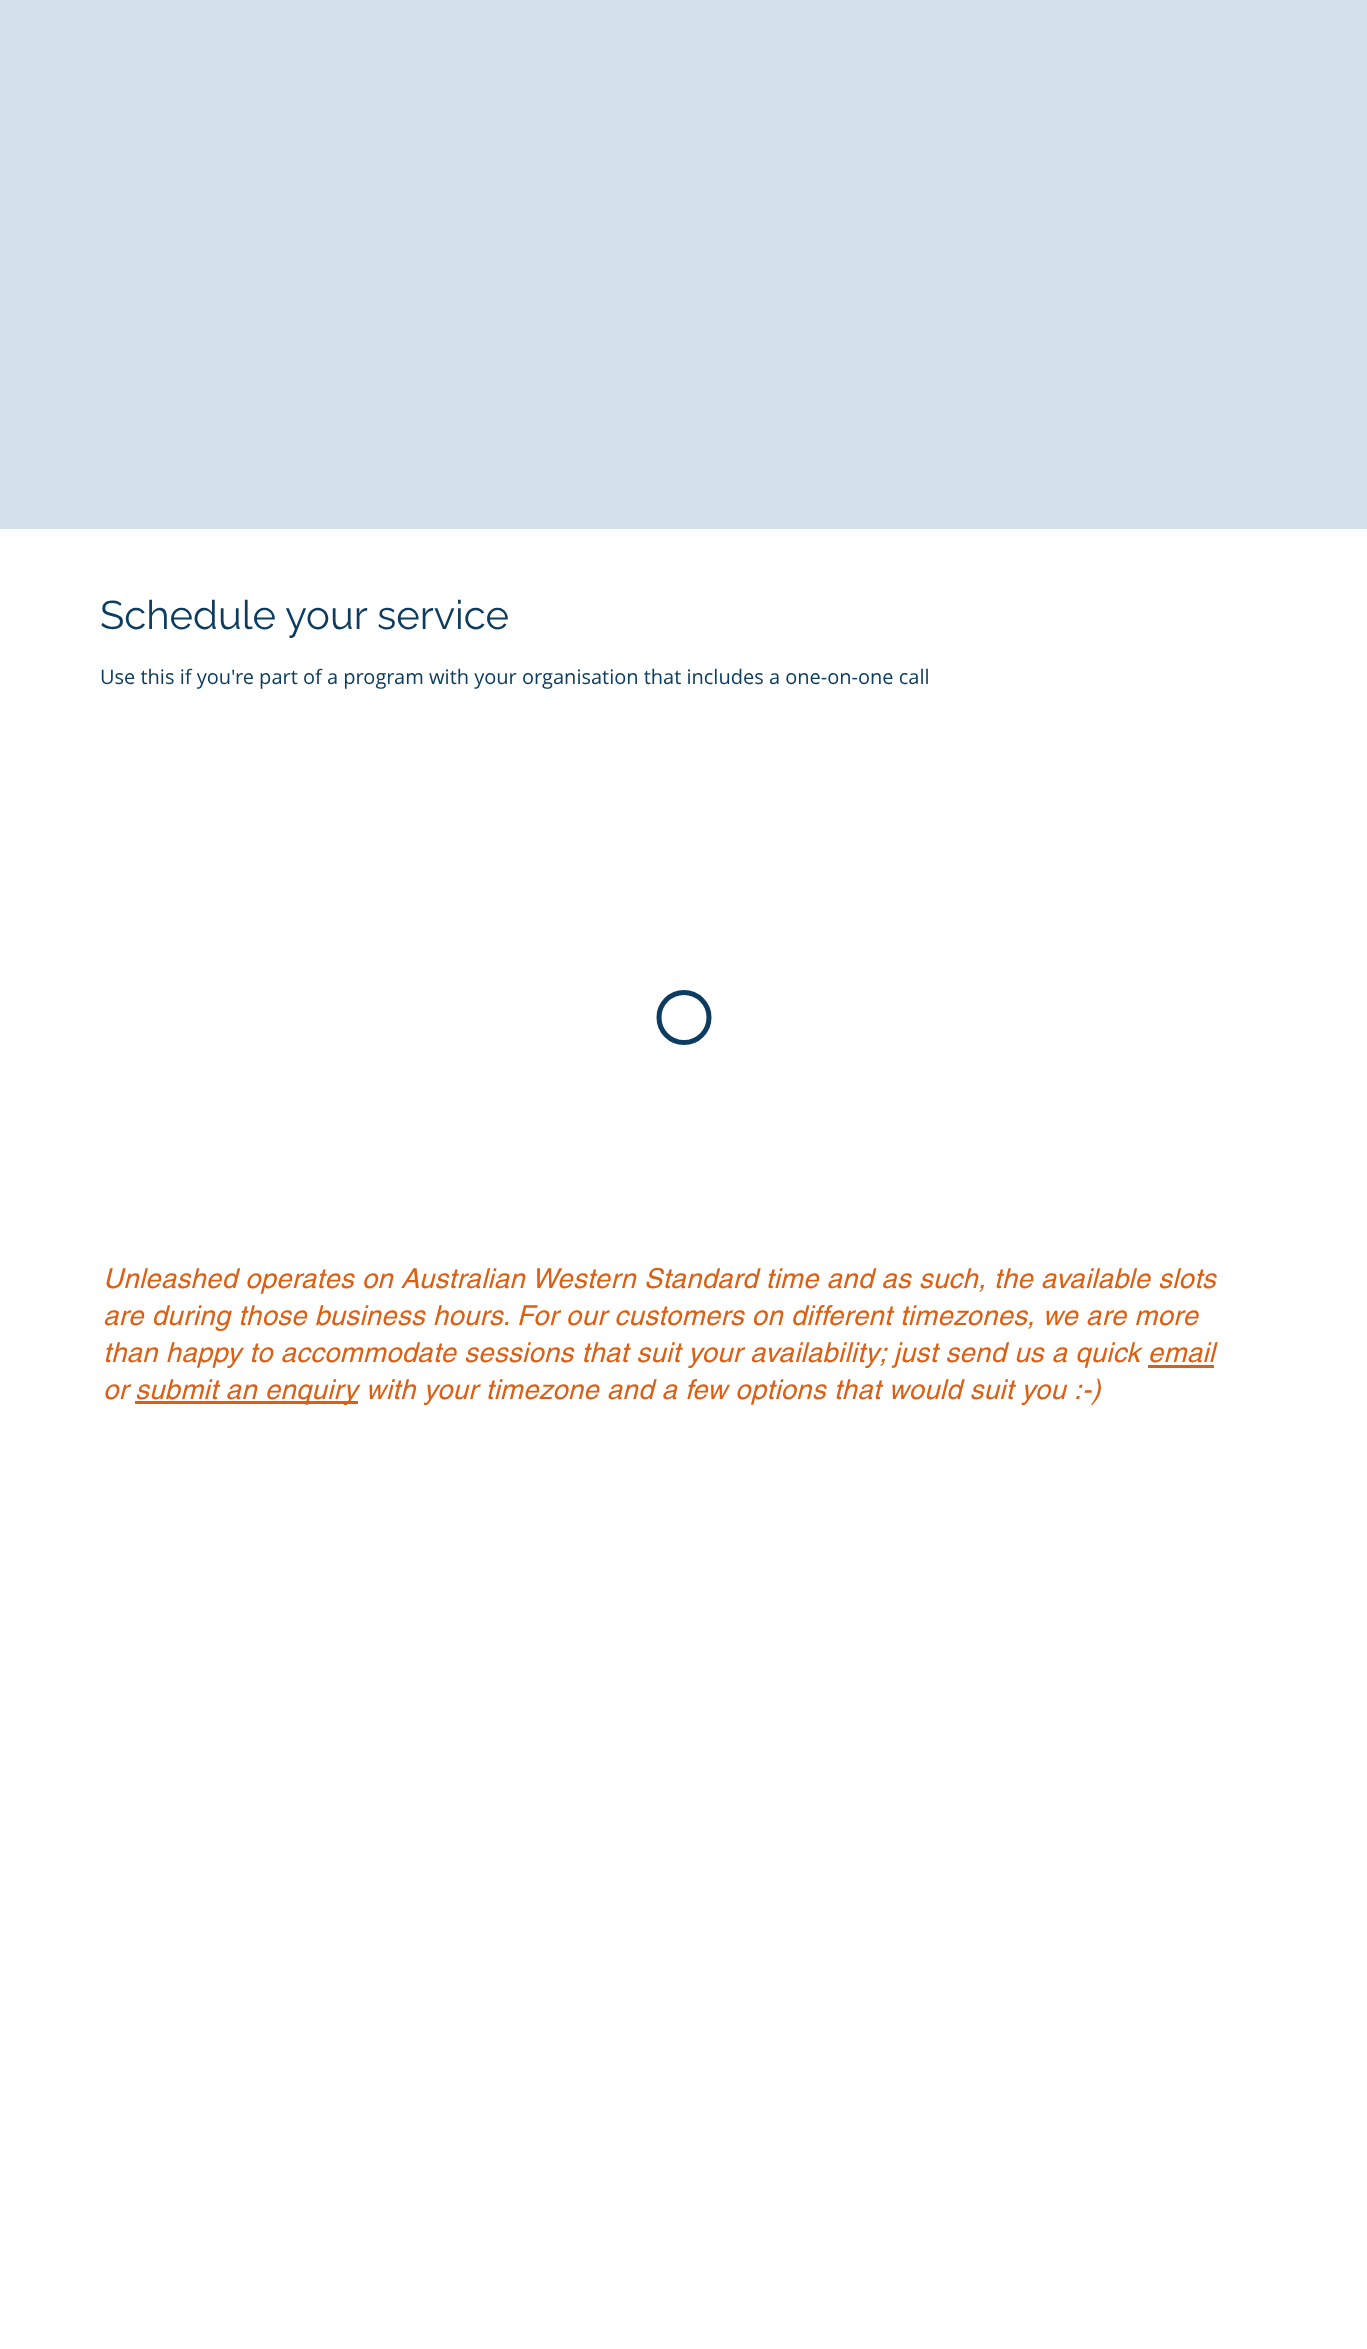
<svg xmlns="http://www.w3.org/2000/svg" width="1367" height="2349">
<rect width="100%" height="100%" fill="#fff"/>
<rect width="1367" height="529" fill="#d1e0eb"/>
<text x="100" y="629" style="font-family:Raleway;font-size:40px;fill:#0c3c60">Schedule your service</text>
<text x="100" y="684" style="font-family:Open Sans;font-size:20px;fill:#0c3c60">Use this if you're part of a program with your organisation that includes a one-on-one call</text>
<circle cx="684" cy="1017.5" r="25" fill="none" stroke="#0c3c60" stroke-width="5"/>
<text x="103" y="1288" style="font-family:helvetica;font-size:27.5px;font-style:italic;letter-spacing:0.28px;fill:#dd5f13">Unleashed operates on Australian Western Standard time and as such, the available slots</text>
<text x="103" y="1325" style="font-family:helvetica;font-size:27.5px;font-style:italic;letter-spacing:0.28px;fill:#dd5f13">are during those business hours. For our customers on different timezones, we are more</text>
<text x="103" y="1362" style="font-family:helvetica;font-size:27.5px;font-style:italic;letter-spacing:0.28px;fill:#dd5f13">than happy to accommodate sessions that suit your availability; just send us a quick email</text>
<rect x="1148" y="1365" width="66" height="3" fill="#dd5f13"/>
<text x="103" y="1399" style="font-family:helvetica;font-size:27.5px;font-style:italic;letter-spacing:0.28px;fill:#dd5f13">or</text>
<rect x="135" y="1401" width="223" height="3" fill="#dd5f13"/>
<text x="135" y="1399" style="font-family:helvetica;font-size:27.5px;font-style:italic;letter-spacing:0.28px;fill:#dd5f13">submit an enquiry with your timezone and a few options that would suit you :-)</text>
</svg>
